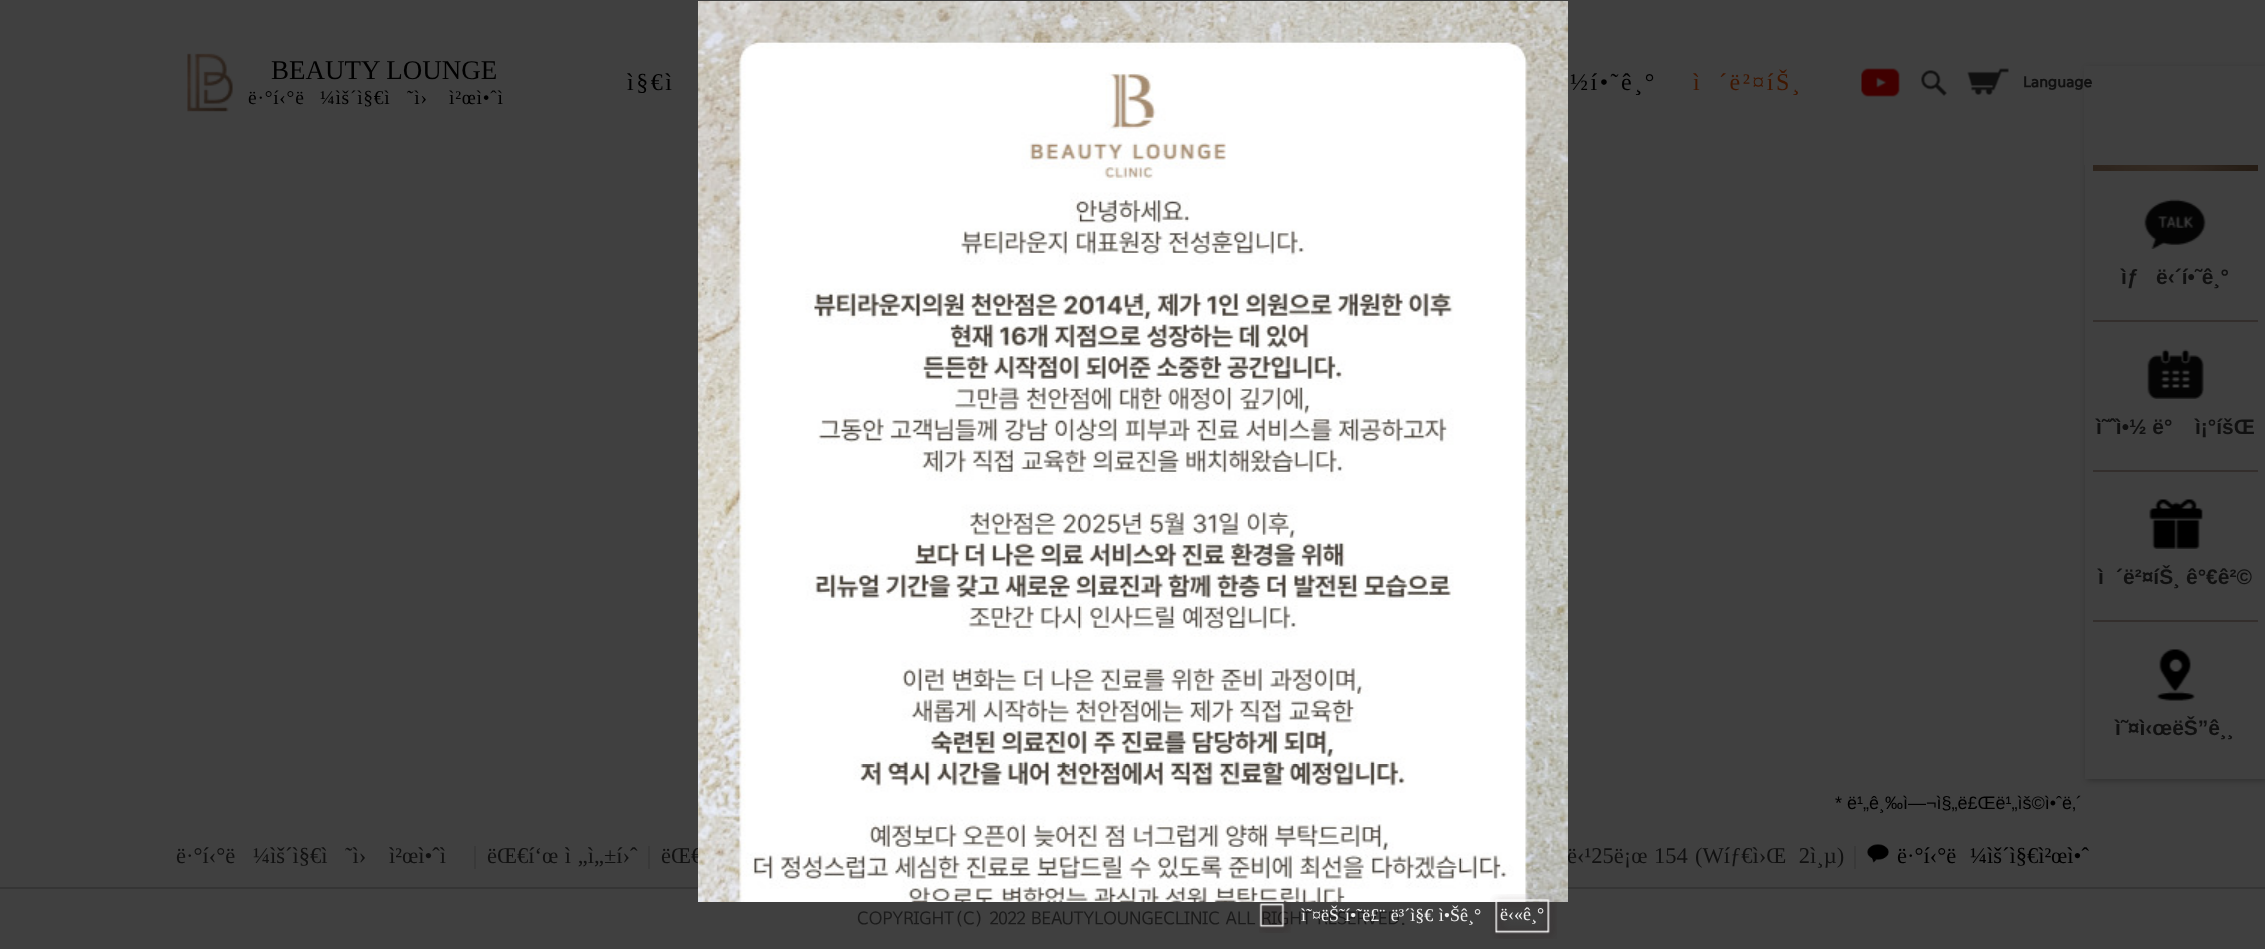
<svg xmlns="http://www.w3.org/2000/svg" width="2265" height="949">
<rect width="100%" height="100%" fill="#404040"/>
<rect x="2087" y="69" width="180" height="711" fill="#0000004d" filter="blur(3px)"/>
<rect x="2084" y="66" width="181" height="99" fill="#404040"/>
<image x="187" y="53" width="46" height="59" href="media/1.png"/>
<text x="271" y="79" style="font-family:Liberation Serif;font-size:27px;fill:#000">BEAUTY LOUNGE</text>
<text x="248" y="104" style="font-family:Liberation Serif;font-size:19.5px;letter-spacing:0.75px;fill:#000">ë·°í‹°ë</text>
<text x="320" y="104" style="font-family:Liberation Serif;font-size:19.5px;letter-spacing:0.75px;fill:#000">¼ìš´ì§€ì</text>
<text x="407" y="104" style="font-family:Liberation Serif;font-size:19.5px;letter-spacing:0.75px;fill:#000">˜ì›</text>
<text x="449" y="104" style="font-family:Liberation Serif;font-size:19.5px;letter-spacing:0.75px;fill:#000">ì²œì•ˆì</text>
<text x="627" y="90" style="font-family:Liberation Serif;font-size:24px;letter-spacing:2.5px;fill:#000">ì§€ì</text>
<text x="1570" y="90" style="font-family:Liberation Serif;font-size:24px;letter-spacing:2.5px;fill:#000">½í•˜ê¸°</text>
<text x="1693" y="90" style="font-family:Liberation Serif;font-size:24px;letter-spacing:2.5px;fill:#401700">ì</text>
<text x="1719" y="90" style="font-family:Liberation Serif;font-size:24px;letter-spacing:2.5px;fill:#401700">´ë²¤íŠ¸</text>
<image x="1861" y="68" width="39" height="29" href="media/2.png"/>
<image x="1921" y="70" width="26" height="26" href="media/3.png"/>
<image x="1967" y="68" width="42" height="27" href="media/4.png"/>
<text x="2023" y="87" style="font-family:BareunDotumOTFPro;font-size:15px;font-weight:bold;fill:#111">Language</text>
<text x="661" y="863" word-spacing="13" style="font-family:Liberation Serif;font-size:22.5px;fill:#111">ëŒ€</text>
<text x="1567" y="863" word-spacing="1" style="font-family:Liberation Serif;font-size:22.5px;fill:#111">ë‹¹25ë¡œ 154</text>
<rect y="887" width="2265" height="2" fill="#353535"/>
<image x="698" y="1" width="870" height="901" href="media/5.png"/>
<text x="857" y="924" style="font-family:BareunDotumOTFPro;font-size:18px;fill:#1b1b1b">COPYRIGHT(C) 2022 BEAUTYLOUNGECLINIC ALL RIGHT RESERVED.</text>
<image x="1259" y="899" width="32" height="34" href="media/6.png"/>
<text x="1301" y="921" word-spacing="1" style="font-family:Liberation Serif;font-size:18px;fill:#f1f1f1">ì˜¤ëŠ˜í•˜ë£¨ ë³´ì§€ ì•Šê¸°</text>
<image x="1490" y="894" width="67" height="45" href="media/7.png"/>
<text x="1500" y="920" style="font-family:Liberation Serif;font-size:18px;fill:#f1f1f1">ë‹«ê¸°</text>
<rect x="2085" y="165" width="180" height="614" fill="#404040"/>
<image x="2093" y="165" width="165" height="6" href="media/8.png"/>
<rect x="2093" y="320" width="165" height="2" fill="#332e2c"/>
<image x="2144" y="199" width="62" height="50" href="media/9.png"/>
<text x="2121" y="284" style="font-family:Liberation Sans;font-size:21px;font-weight:bold;fill:#111">ìƒ</text>
<text x="2156" y="284" style="font-family:Liberation Sans;font-size:21px;font-weight:bold;fill:#111">ë‹´í•˜ê¸°</text>
<rect x="2093" y="470" width="165" height="2" fill="#332e2c"/>
<image x="2147" y="349" width="57" height="50" href="media/10.png"/>
<text x="2096" y="434" style="font-family:Liberation Sans;font-size:21px;font-weight:bold;fill:#111">ì˜ˆì•½ ë°</text>
<text x="2195" y="434" style="font-family:Liberation Sans;font-size:21px;font-weight:bold;fill:#111">ì¡°íšŒ</text>
<rect x="2093" y="620" width="165" height="2" fill="#332e2c"/>
<image x="2149" y="499" width="54" height="50" href="media/11.png"/>
<text x="2098" y="584" style="font-family:Liberation Sans;font-size:21px;font-weight:bold;fill:#111">ì</text>
<text x="2116" y="584" style="font-family:Liberation Sans;font-size:21px;font-weight:bold;fill:#111">´ë²¤íŠ¸ ê°€ê²©</text>
<image x="2156" y="649" width="39" height="52" href="media/12.png"/>
<text x="2115" y="735" style="font-family:Liberation Sans;font-size:21px;font-weight:bold;fill:#111">ì˜¤ì‹œëŠ”ê¸¸</text>
<text x="1835" y="809" style="font-family:Liberation Sans;font-size:18px;fill:#000">* ë¹„ê¸‰ì—¬ì§„ë£Œë¹„ìš©ì•ˆë‚´</text>
<text x="176" y="863" style="font-family:Liberation Serif;font-size:22.5px;fill:#111">ë·°í‹°ë</text>
<text x="253" y="863" style="font-family:Liberation Serif;font-size:22.5px;fill:#111">¼ìš´ì§€ì</text>
<text x="345" y="863" style="font-family:Liberation Serif;font-size:22.5px;fill:#111">˜ì›</text>
<text x="389" y="863" style="font-family:Liberation Serif;font-size:22.5px;fill:#111">ì²œì•ˆì</text>
<rect x="474" y="846" width="2" height="23" fill="#393939"/>
<text x="487" y="863" word-spacing="1" style="font-family:Liberation Serif;font-size:22.5px;fill:#111">ëŒ€í‘œ ì „ì„±í›ˆ</text>
<rect x="648" y="846" width="2" height="23" fill="#393939"/>
<text x="1695" y="863" word-spacing="7" style="font-family:Liberation Serif;font-size:22.5px;fill:#111">(Wíƒ€ì›Œ 2ì¸µ)</text>
<rect x="1854" y="846" width="2" height="23" fill="#393939"/>
<image x="1867" y="844" width="22" height="19" href="media/13.png"/>
<text x="1897" y="863" style="font-family:Liberation Serif;font-size:22.5px;fill:#000">ë·°í‹°ë</text>
<text x="1970" y="863" style="font-family:Liberation Serif;font-size:22.5px;fill:#000">¼ìš´ì§€ì²œì•ˆ</text>
</svg>
